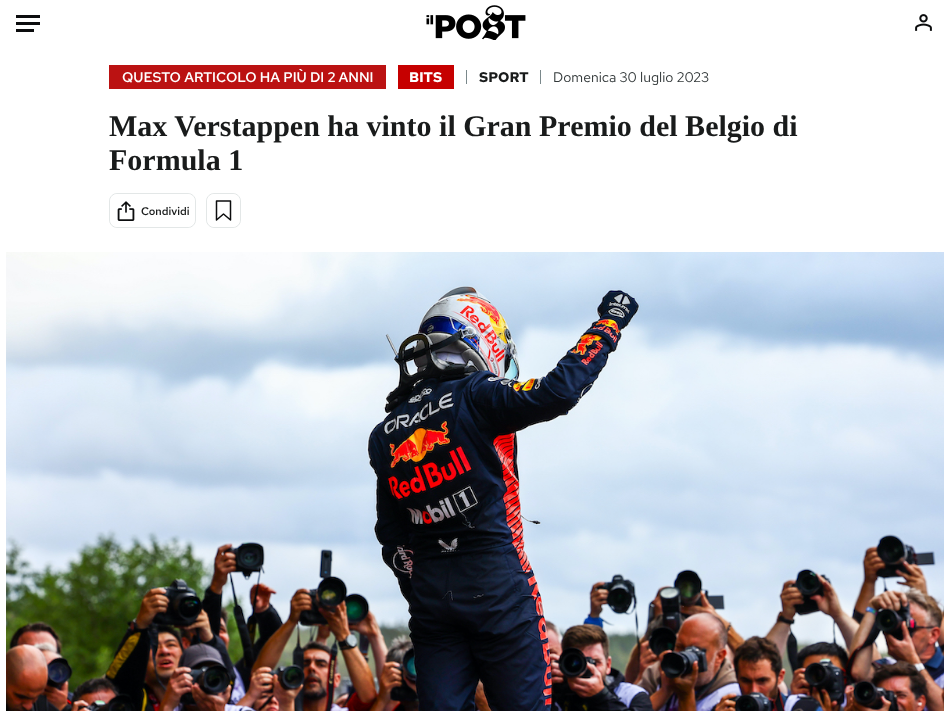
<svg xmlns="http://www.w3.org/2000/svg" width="950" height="711">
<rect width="100%" height="100%" fill="#fff"/>
<image x="16" y="15" width="24" height="17" href="media/1.png"/>
<image x="426" y="5" width="100" height="35" href="media/2.png"/>
<image x="915" y="14" width="17" height="17" href="media/3.png"/>
<rect x="109" y="65" width="277" height="24" fill="#bb1212"/>
<text x="122" y="82" style="font-family:Red Hat Text;font-size:14px;font-weight:600;fill:#fff">QUESTO ARTICOLO HA PIÙ DI 2 ANNI</text>
<rect x="398" y="65" width="56" height="24" fill="#c60000"/>
<text x="409" y="82" style="font-family:Red Hat Text;font-size:14px;font-weight:bold;fill:#fff">BITS</text>
<rect x="466" y="70" width="1" height="14" fill="#7a888b"/>
<text x="479" y="82" style="font-family:Red Hat Text;font-size:14px;font-weight:bold;fill:#191b1b">SPORT</text>
<rect x="540" y="70" width="1" height="14" fill="#7a888b"/>
<text x="553" y="82" style="font-family:Red Hat Text;font-size:14px;fill:#323839">Domenica 30 luglio 2023</text>
<text x="109" y="136" style="font-family:Liberation Serif;font-size:30px;font-weight:bold;fill:#191b1b">Max Verstappen ha vinto il Gran Premio del Belgio di</text>
<text x="109" y="170" style="font-family:Liberation Serif;font-size:30px;font-weight:bold;fill:#191b1b">Formula 1</text>
<rect x="109.5" y="193.5" width="86" height="34" rx="7.5" fill="none" stroke="#e3e7e7"/>
<rect x="110" y="194" width="85" height="33" rx="8" fill="#fff"/>
<image x="117" y="201" width="18" height="20" href="media/4.png"/>
<text x="141" y="215" style="font-family:Red Hat Text;font-size:11px;font-weight:600;fill:#191b1b">Condividi</text>
<rect x="206.5" y="193.5" width="34" height="34" rx="7.5" fill="none" stroke="#e3e7e7"/>
<rect x="207" y="194" width="33" height="33" rx="8" fill="#fff"/>
<path d="M216.5 220v-19h14v19l-7-6z" fill="none" stroke="#0c0d0e" stroke-width="1.5" stroke-linejoin="round"/>
<image x="6" y="252" width="938" height="459" href="media/5.png"/>
</svg>
